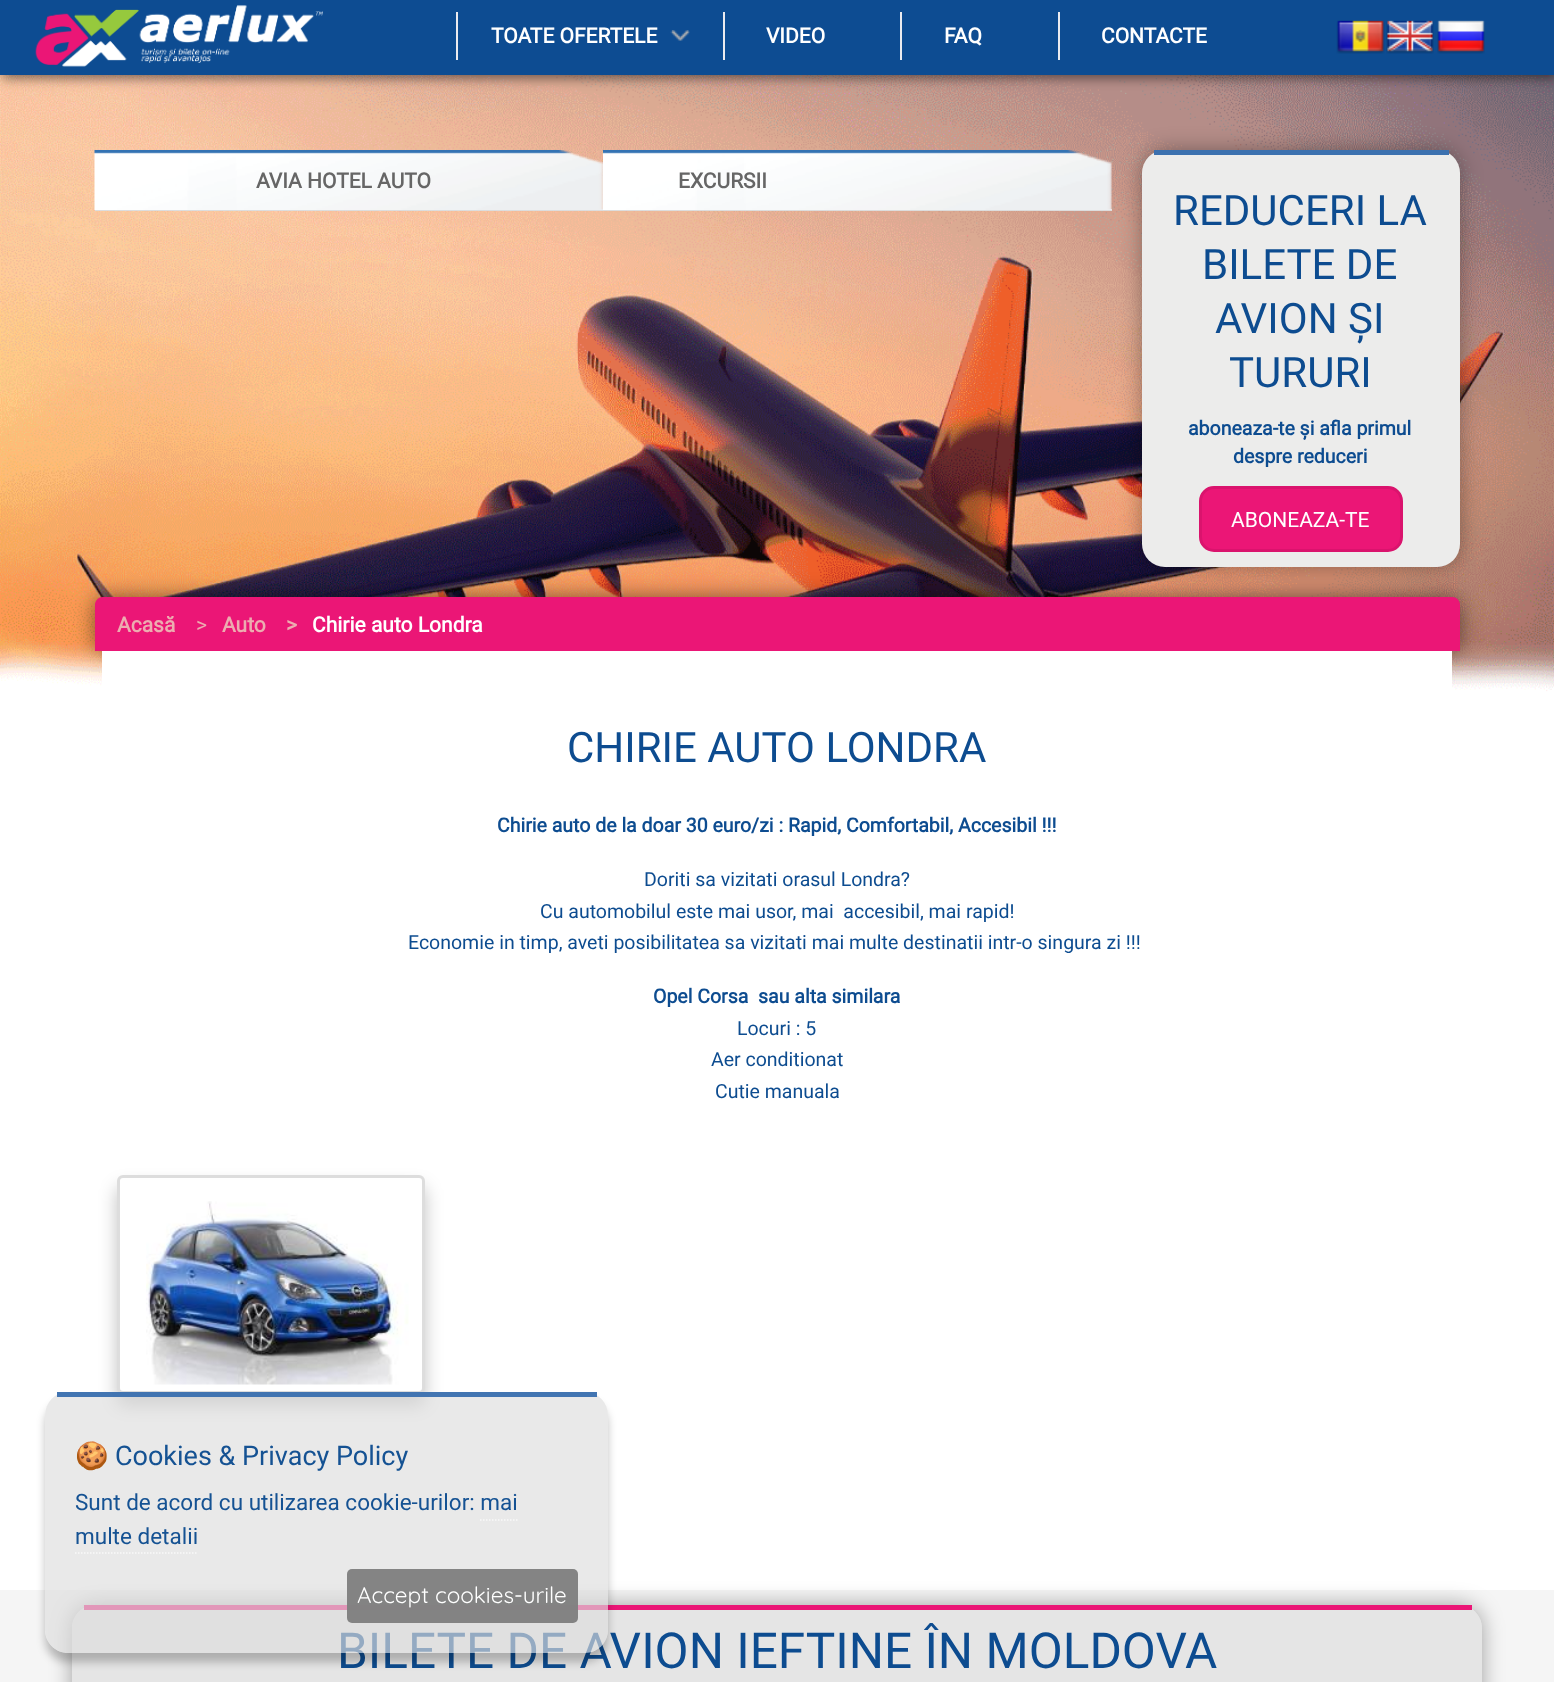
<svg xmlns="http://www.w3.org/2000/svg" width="1554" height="1682">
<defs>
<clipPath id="clip1"><path d="M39 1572h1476v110h-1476zm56 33h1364c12.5 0 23 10.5 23 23v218c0 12.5-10.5 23-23 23h-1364c-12.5 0-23-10.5-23-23v-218c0-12.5 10.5-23 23-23z" clip-rule="evenodd"/></clipPath>
<clipPath id="clip2"><path d="M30 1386h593v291h-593zm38 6h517c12.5 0 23 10.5 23 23v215c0 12.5-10.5 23-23 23h-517c-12.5 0-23-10.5-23-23v-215c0-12.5 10.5-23 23-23z" clip-rule="evenodd"/></clipPath>
</defs>
<rect width="100%" height="100%" fill="#fff"/>
<image x="0" y="75" width="1554" height="618" href="media/1.png"/>
<rect x="3" y="3" width="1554" height="75" fill="#00000080" filter="blur(6px)"/>
<rect width="1554" height="75" fill="#0d4c92"/>
<image x="35" y="5" width="288" height="62" href="media/2.png"/>
<rect x="456" y="12" width="2" height="48" fill="#eaebf0"/>
<text x="491" y="43" style="font-family:Roboto;font-size:21px;font-weight:bold;fill:#fff">TOATE OFERTELE</text>
<image x="670" y="30" width="20" height="11" href="media/3.png"/>
<rect x="723" y="12" width="2" height="48" fill="#eaebf0"/>
<text x="766" y="43" style="font-family:Roboto;font-size:21px;font-weight:bold;fill:#fff">VIDEO</text>
<rect x="900" y="12" width="2" height="48" fill="#eaebf0"/>
<text x="944" y="43" style="font-family:Roboto;font-size:21px;font-weight:bold;fill:#fff">FAQ</text>
<rect x="1058" y="12" width="2" height="48" fill="#eaebf0"/>
<text x="1101" y="43" style="font-family:Roboto;font-size:21px;font-weight:bold;fill:#fff">CONTACTE</text>
<image x="1336" y="20" width="49" height="34" href="media/4.png"/>
<image x="1386" y="20" width="48" height="34" href="media/5.png"/>
<image x="1437" y="20" width="48" height="34" href="media/6.png"/>
<rect x="95" y="209" width="1017" height="2" fill="#ddd"/>
<image x="94" y="150" width="509" height="60" href="media/7.png"/>
<text x="256" y="188" style="font-family:Roboto;font-size:21px;font-weight:bold;fill:#666">AVIA HOTEL AUTO</text>
<image x="603" y="150" width="509" height="60" href="media/8.png"/>
<text x="678" y="188" style="font-family:Roboto;font-size:21px;font-weight:bold;fill:#666">EXCURSII</text>
<rect x="1142" y="150" width="318" height="417" rx="23" fill="#00000059" filter="blur(10.5px)"/>
<rect x="1142" y="150" width="318" height="417" rx="23" fill="#ececeb"/>
<rect x="1154" y="150" width="295" height="5" fill="#3c71af"/>
<text x="1173" y="225" style="font-family:Roboto;font-size:42px;fill:#0d4c90">REDUCERI LA</text>
<text x="1202" y="279" style="font-family:Roboto;font-size:42px;fill:#0d4c90">BILETE DE</text>
<text x="1215" y="333" style="font-family:Roboto;font-size:42px;fill:#0d4c90">AVION ȘI</text>
<text x="1229" y="387" style="font-family:Roboto;font-size:42px;fill:#0d4c90">TURURI</text>
<text x="1188" y="435" style="font-family:Roboto;font-size:19.5px;font-weight:bold;fill:#0d4c90">aboneaza-te și afla primul</text>
<text x="1233" y="463" style="font-family:Roboto;font-size:19.5px;font-weight:bold;fill:#0d4c90">despre reduceri</text>
<rect x="1200.5" y="487.5" width="201" height="63" rx="13.5" fill="#eb1676" stroke="#da136d" stroke-width="3"/>
<text x="1231" y="527" style="font-family:Roboto;font-size:21px;fill:#fff">ABONEAZA-TE</text>
<image x="0" y="645" width="1554" height="34" href="media/10.png"/>
<rect x="95" y="597" width="1365" height="54" rx="8" fill="#00000080" filter="blur(10.5px)"/>
<path d="M103 597h1349c4.5 0 8 3.5 8 8v46h-1365v-46c0-4.5 3.5-8 8-8z" fill="#eb1676"/>
<text x="117" y="632" style="font-family:Roboto;font-size:21px;font-weight:bold;fill:#ecadb0">Acasă</text>
<text x="196" y="632" style="font-family:Roboto;font-size:21px;fill:#ecadb0">&gt;</text>
<text x="222" y="632" style="font-family:Roboto;font-size:21px;font-weight:bold;fill:#ecadb0">Auto</text>
<text x="286" y="632" style="font-family:Roboto;font-size:21px;font-weight:bold;fill:#ecadb0">&gt;</text>
<text x="312" y="632" style="font-family:Roboto;font-size:21px;font-weight:bold;fill:#fff">Chirie auto Londra</text>
<rect x="102" y="651" width="1350" height="42" fill="#fff"/>
<text x="567" y="762" style="font-family:Roboto;font-size:42px;fill:#0d4c90">CHIRIE AUTO LONDRA</text>
<text x="497" y="832" style="font-family:Roboto;font-size:19.5px;font-weight:bold;fill:#0d4c90">Chirie auto de la doar 30 euro/zi : Rapid, Comfortabil, Accesibil !!!</text>
<text x="644" y="886" style="font-family:Roboto;font-size:19.5px;fill:#0d4c90">Doriti sa vizitati orasul Londra?</text>
<text x="540" y="918" style="font-family:Roboto;font-size:19.5px;fill:#0d4c90" xml:space="preserve">Cu automobilul este mai usor, mai  accesibil, mai rapid!</text>
<text x="408" y="949" style="font-family:Roboto;font-size:19.5px;fill:#0d4c90">Economie in timp, aveti posibilitatea sa vizitati mai multe destinatii intr-o singura zi !!!</text>
<text x="653" y="1003" style="font-family:Roboto;font-size:19.5px;font-weight:bold;fill:#0d4c90" xml:space="preserve">Opel Corsa  sau alta similara</text>
<text x="737" y="1035" style="font-family:Roboto;font-size:19.5px;fill:#0d4c90">Locuri : 5</text>
<text x="711" y="1066" style="font-family:Roboto;font-size:19.5px;fill:#0d4c90">Aer conditionat</text>
<text x="715" y="1098" style="font-family:Roboto;font-size:19.5px;fill:#0d4c90">Cutie manuala</text>
<rect x="117" y="1187" width="308" height="219" rx="6" fill="#0000003d" filter="blur(9px)"/>
<rect x="118.5" y="1176.5" width="305" height="216" rx="4.5" fill="#fff" stroke="#ddd" stroke-width="3"/>
<image x="146" y="1201" width="263" height="184" href="media/9.png"/>
<rect y="1590" width="1554" height="92" fill="#f5f5f5"/>
<g clip-path="url(#clip1)">
<rect x="72" y="1605" width="1410" height="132" rx="23" fill="#00000059" filter="blur(10.5px)"/>
</g>
<rect x="72" y="1605" width="1410" height="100" rx="23" fill="#ddddddab"/>
<rect x="84" y="1605" width="1388" height="5" fill="#eb1676"/>
<text x="337" y="1668" style="font-family:Roboto;font-size:49.5px;fill:#0d4c90">BILETE DE AVION IEFTINE ÎN MOLDOVA</text>
<g clip-path="url(#clip2)">
<rect x="45" y="1401" width="563" height="261" rx="23" fill="#0000003d" filter="blur(4.5px)"/>
</g>
<rect x="45" y="1392" width="563" height="261" rx="23" fill="#dddddda6"/>
<rect x="57" y="1392" width="540" height="5" fill="#3c71aff7"/>
<text x="75" y="1465" style="font-family:Noto Color Emoji;font-size:27px;fill:#155293">🍪</text>
<text x="115" y="1465" style="font-family:Roboto;font-size:27px;fill:#155293">Cookies &amp; Privacy Policy</text>
<text x="75" y="1510" style="font-family:Roboto;font-size:22.5px;fill:#155293">Sunt de acord cu utilizarea cookie-urilor: mai</text>
<text x="75" y="1544" style="font-family:Roboto;font-size:22.5px;fill:#155293">multe detalii</text>
<path d="M480 1520h37.5" fill="none" stroke="#f9f9f9" stroke-width="1.5" stroke-dasharray="1.5 1.5"/>
<path d="M75 1553h123" fill="none" stroke="#f9f9f9" stroke-width="1.5" stroke-dasharray="1.5 1.5"/>
<rect x="347" y="1569" width="231" height="54" rx="5" fill="#808080f7"/>
<text x="357" y="1603" style="font-family:Quicksand;font-size:22.5px;fill:#fff">Accept cookies-urile</text>
</svg>
